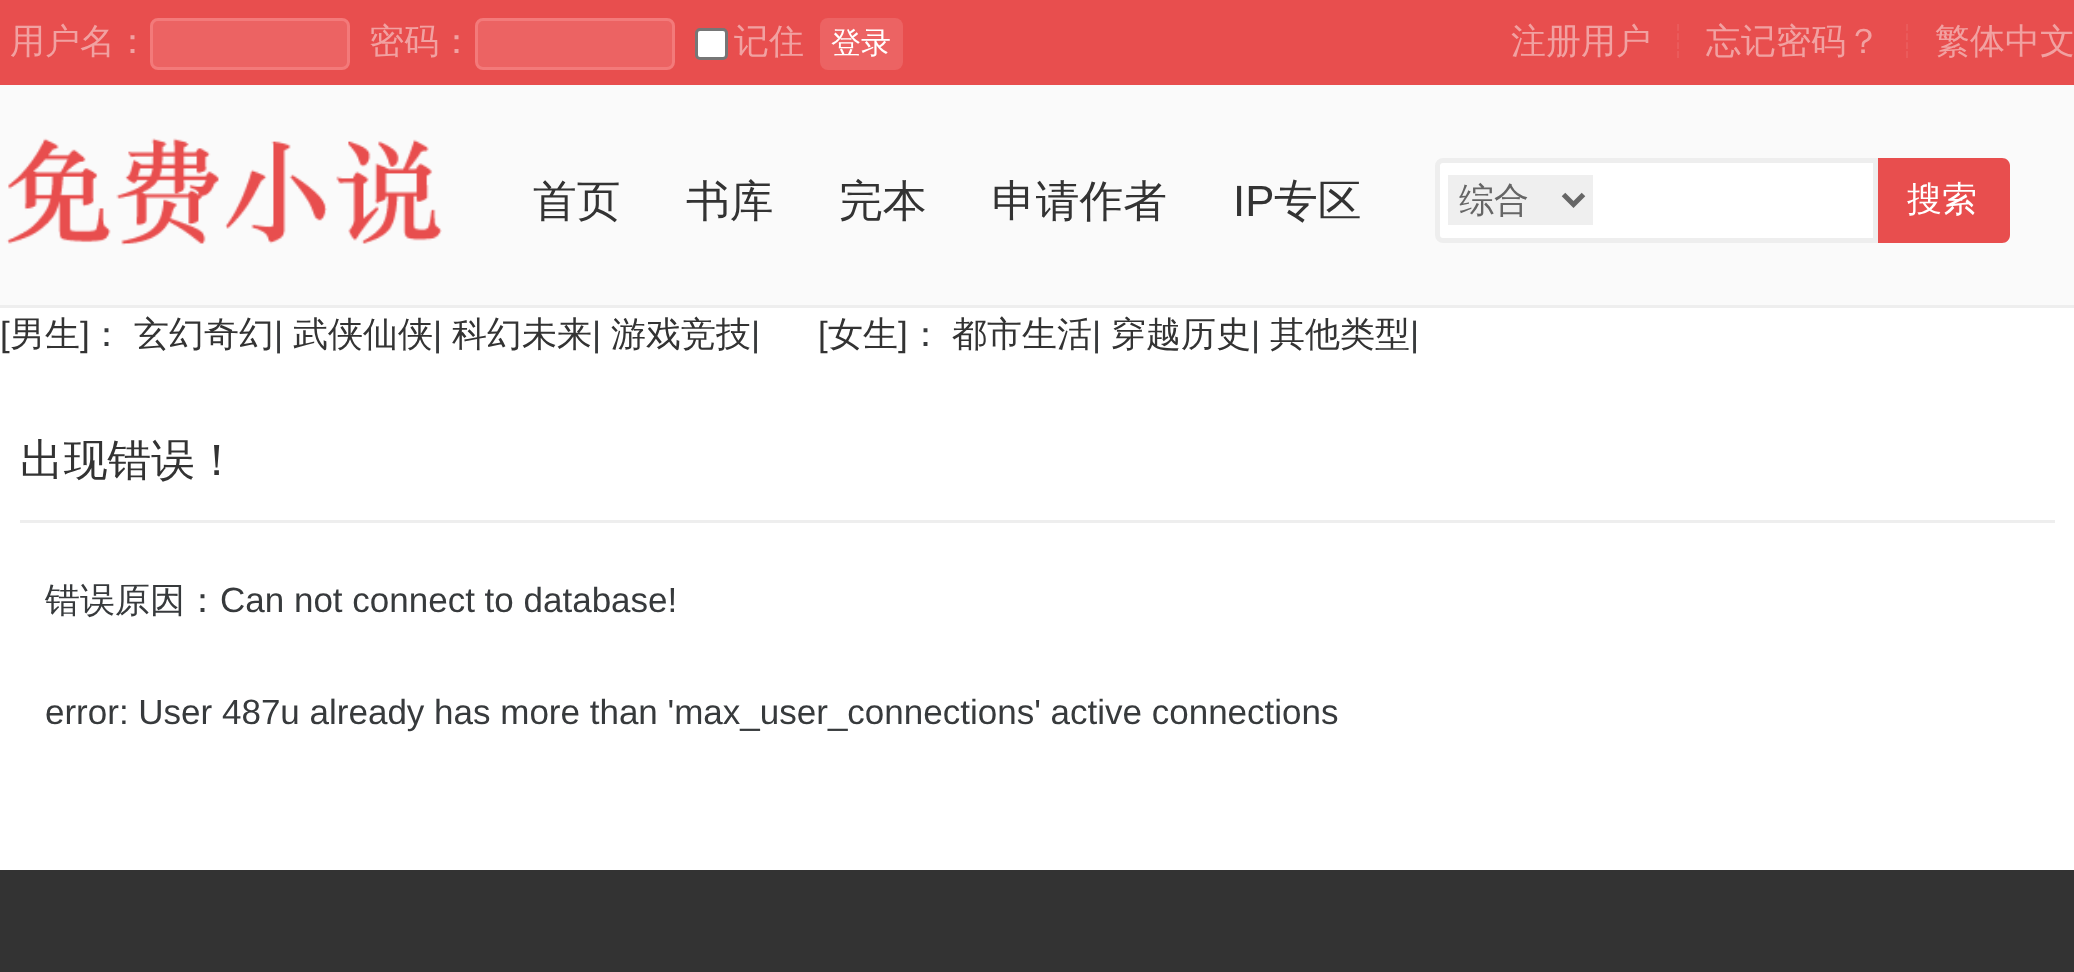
<svg xmlns="http://www.w3.org/2000/svg" width="2074" height="972">
<rect width="100%" height="100%" fill="#fff"/>
<rect width="2074" height="85" fill="#e84e4e"/>
<text x="10" y="53" style="font-family:WenQuanYi Zen Hei;font-size:35px;font-weight:500;fill:#f1a1a1">用户名：</text>
<rect x="151.5" y="19.5" width="197" height="49" rx="6.5" fill="#ec6363" stroke="#f37a7a" stroke-width="3"/>
<text x="369" y="53" style="font-family:WenQuanYi Zen Hei;font-size:35px;font-weight:500;fill:#f1a1a1">密码：</text>
<rect x="476.5" y="19.5" width="197" height="49" rx="6.5" fill="#ec6363" stroke="#f37a7a" stroke-width="3"/>
<rect x="696.5" y="29.5" width="30" height="29" rx="3.5" fill="#fff" stroke="#767676" stroke-width="3"/>
<text x="734" y="53" style="font-family:WenQuanYi Zen Hei;font-size:35px;font-weight:500;fill:#f1a1a1">记住</text>
<rect x="820" y="18" width="83" height="52" rx="8" fill="#ec6363"/>
<text x="831" y="53" style="font-family:WenQuanYi Zen Hei;font-size:30px;font-weight:500;fill:#fff">登录</text>
<text x="1511" y="53" style="font-family:WenQuanYi Zen Hei;font-size:35px;font-weight:500;fill:#f1a1a1">注册用户</text>
<text x="1661" y="53" style="font-family:WenQuanYi Zen Hei;font-size:35px;font-weight:500;fill:#ea6565">┊</text>
<text x="1706" y="53" style="font-family:WenQuanYi Zen Hei;font-size:35px;font-weight:500;fill:#f1a1a1">忘记密码？</text>
<text x="1890" y="53" style="font-family:WenQuanYi Zen Hei;font-size:35px;font-weight:500;fill:#ea6565">┊</text>
<text x="1935" y="53" style="font-family:WenQuanYi Zen Hei;font-size:35px;font-weight:500;fill:#f1a1a1">繁体中文</text>
<rect y="85" width="2074" height="220" fill="#fafafa"/>
<rect y="305" width="2074" height="3" fill="#eee"/>
<image x="6" y="138" width="436" height="108" href="media/1.png"/>
<text x="533" y="216" style="font-family:WenQuanYi Zen Hei;font-size:43.75px;font-weight:500;fill:#333">首页</text>
<text x="686" y="216" style="font-family:WenQuanYi Zen Hei;font-size:43.75px;font-weight:500;fill:#333">书库</text>
<text x="839" y="216" style="font-family:WenQuanYi Zen Hei;font-size:43.75px;font-weight:500;fill:#333">完本</text>
<text x="992" y="216" style="font-family:WenQuanYi Zen Hei;font-size:43.75px;font-weight:500;fill:#333">申请作者</text>
<text x="1233" y="216" style="font-family:Liberation Sans;font-size:43.75px;fill:#333">IP</text>
<text x="1274" y="216" style="font-family:WenQuanYi Zen Hei;font-size:43.75px;font-weight:500;fill:#333">专区</text>
<path d="M1873 158h129c4.5 0 8 3.5 8 8v69c0 4.5-3.5 8-8 8h-129z" fill="#e84e4e"/>
<path d="M1443 160.5h432.5v80h-432.5c-3 0-5.5-2.5-5.5-5.5v-69c0-3 2.5-5.5 5.5-5.5z" fill="#fff" stroke="#eee" stroke-width="5"/>
<rect x="1448" y="175" width="145" height="50" fill="#efefef"/>
<path d="M1563.5 194.5l10 10l10-10" fill="none" stroke="#666" stroke-width="5"/>
<text x="1459" y="212" style="font-family:WenQuanYi Zen Hei;font-size:35px;font-weight:500;fill:#666">综合</text>
<text x="1907" y="211" style="font-family:WenQuanYi Zen Hei;font-size:35px;font-weight:500;fill:#fff">搜索</text>
<text x="0" y="346" style="font-family:Liberation Sans;font-size:35px;fill:#333">[</text>
<text x="10" y="346" style="font-family:WenQuanYi Zen Hei;font-size:35px;font-weight:500;fill:#333">男生</text>
<text x="80" y="346" style="font-family:Liberation Sans;font-size:35px;fill:#333">]</text>
<text x="89" y="346" style="font-family:WenQuanYi Zen Hei;font-size:35px;font-weight:500;fill:#373a3c">：</text>
<text x="134" y="346" style="font-family:WenQuanYi Zen Hei;font-size:35px;font-weight:500;fill:#333">玄幻奇幻</text>
<text x="274" y="346" style="font-family:Liberation Sans;font-size:35px;fill:#373a3c">|</text>
<text x="293" y="346" style="font-family:WenQuanYi Zen Hei;font-size:35px;font-weight:500;fill:#333">武侠仙侠</text>
<text x="433" y="346" style="font-family:Liberation Sans;font-size:35px;fill:#373a3c">|</text>
<text x="452" y="346" style="font-family:WenQuanYi Zen Hei;font-size:35px;font-weight:500;fill:#333">科幻未来</text>
<text x="592" y="346" style="font-family:Liberation Sans;font-size:35px;fill:#373a3c">|</text>
<text x="611" y="346" style="font-family:WenQuanYi Zen Hei;font-size:35px;font-weight:500;fill:#333">游戏竞技</text>
<text x="751" y="346" style="font-family:Liberation Sans;font-size:35px;fill:#373a3c">|</text>
<text x="818" y="346" style="font-family:Liberation Sans;font-size:35px;fill:#333">[</text>
<text x="828" y="346" style="font-family:WenQuanYi Zen Hei;font-size:35px;font-weight:500;fill:#333">女生</text>
<text x="898" y="346" style="font-family:Liberation Sans;font-size:35px;fill:#333">]</text>
<text x="908" y="346" style="font-family:WenQuanYi Zen Hei;font-size:35px;font-weight:500;fill:#373a3c">：</text>
<text x="952" y="346" style="font-family:WenQuanYi Zen Hei;font-size:35px;font-weight:500;fill:#333">都市生活</text>
<text x="1092" y="346" style="font-family:Liberation Sans;font-size:35px;fill:#373a3c">|</text>
<text x="1111" y="346" style="font-family:WenQuanYi Zen Hei;font-size:35px;font-weight:500;fill:#333">穿越历史</text>
<text x="1251" y="346" style="font-family:Liberation Sans;font-size:35px;fill:#373a3c">|</text>
<text x="1270" y="346" style="font-family:WenQuanYi Zen Hei;font-size:35px;font-weight:500;fill:#333">其他类型</text>
<text x="1410" y="346" style="font-family:Liberation Sans;font-size:35px;fill:#373a3c">|</text>
<rect x="20" y="520" width="2035" height="3" fill="#eee"/>
<text x="20" y="475" style="font-family:WenQuanYi Zen Hei;font-size:43.75px;font-weight:500;fill:#333">出现错误！</text>
<text x="45" y="612" style="font-family:WenQuanYi Zen Hei;font-size:35px;font-weight:500;fill:#373a3c">错误原因：</text>
<text x="220" y="612" style="font-family:Liberation Sans;font-size:35px;fill:#373a3c">Can not connect to database!</text>
<text x="45" y="724" style="font-family:Liberation Sans;font-size:35px;fill:#373a3c">error: User 487u already has more than 'max_user_connections' active connections</text>
<rect y="870" width="2074" height="102" fill="#333"/>
</svg>
